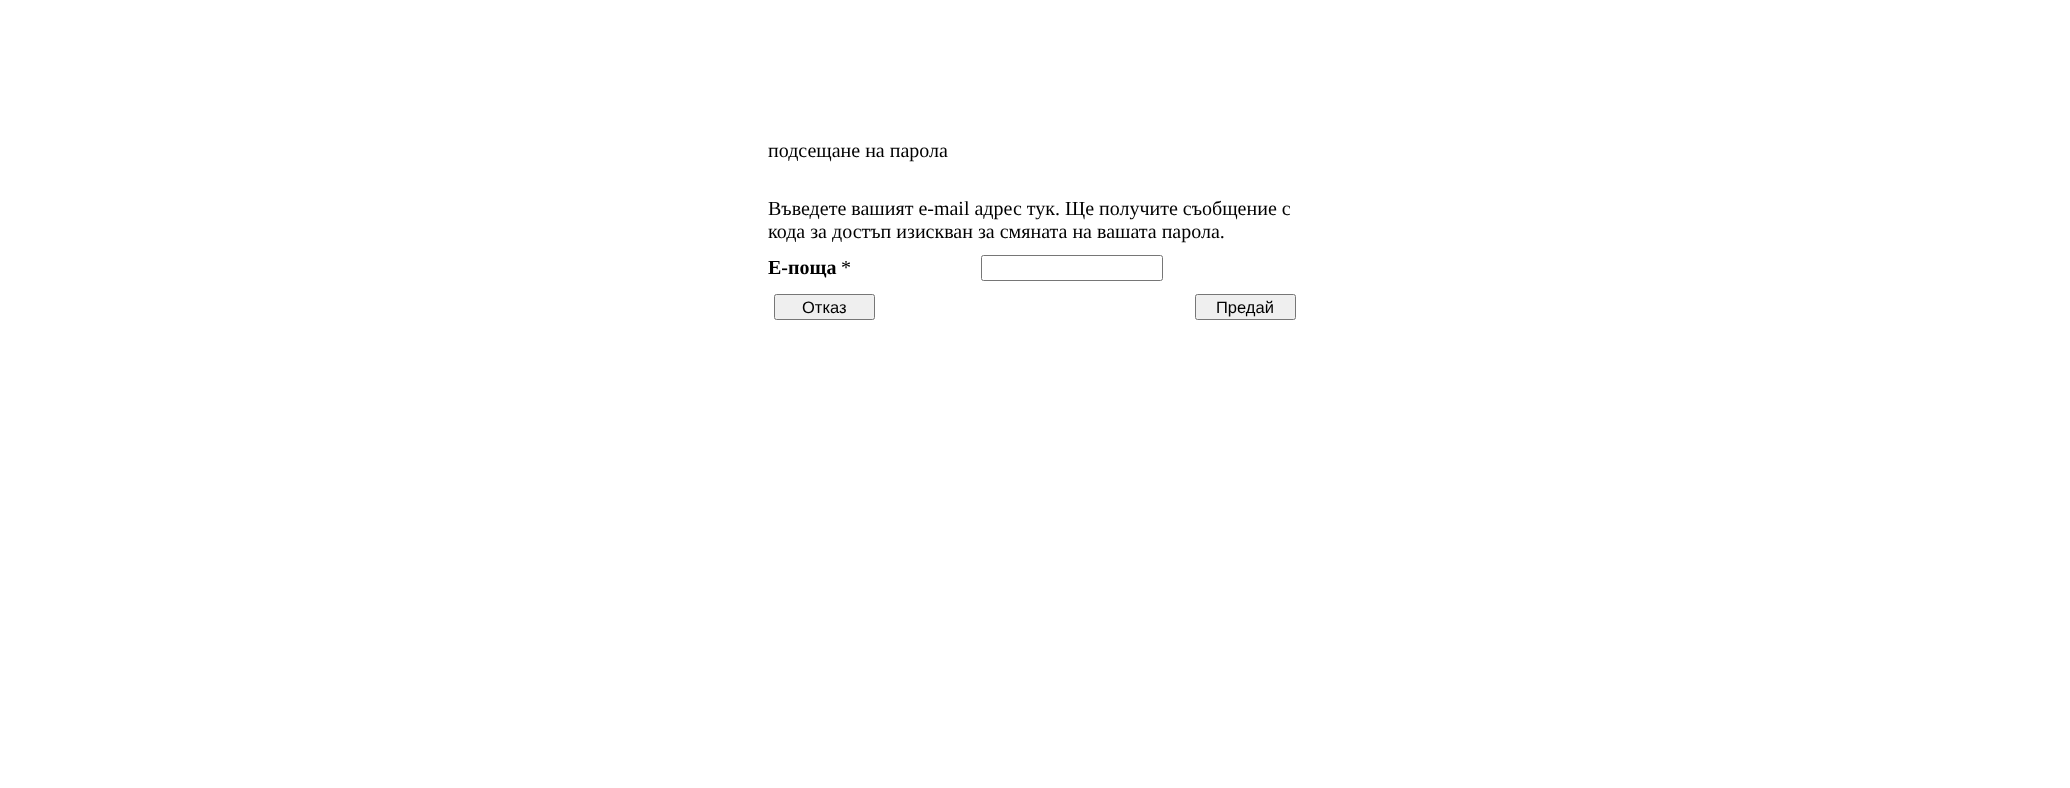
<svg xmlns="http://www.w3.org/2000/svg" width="2070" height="788">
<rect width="100%" height="100%" fill="#fff"/>
<text x="768" y="157" style="font-family:Liberation Serif;font-size:20px;fill:#000">подсещане на парола</text>
<text x="768" y="215" style="font-family:Liberation Serif;font-size:20px;fill:#000">Въведете вашият e-mail адрес тук. Ще получите съобщение с</text>
<text x="768" y="238" style="font-family:Liberation Serif;font-size:20px;fill:#000">кода за достъп изискван за смяната на вашата парола.</text>
<text x="768" y="274" style="font-family:Liberation Serif;font-size:20px;font-weight:bold;fill:#000">Е-поща</text>
<text x="841" y="274" style="font-family:Liberation Serif;font-size:20px;fill:#000">*</text>
<rect x="981.5" y="255.5" width="181" height="25" rx="2" fill="none" stroke="#767676"/>
<rect x="774.5" y="294.5" width="100" height="25" rx="2" fill="#efefef" stroke="#767676"/>
<text x="802" y="313" style="font-family:Liberation Sans;font-size:16.5px;fill:#000">Отказ</text>
<rect x="1195.5" y="294.5" width="100" height="25" rx="2" fill="#efefef" stroke="#767676"/>
<text x="1216" y="313" style="font-family:Liberation Sans;font-size:16.5px;fill:#000">Предай</text>
</svg>
